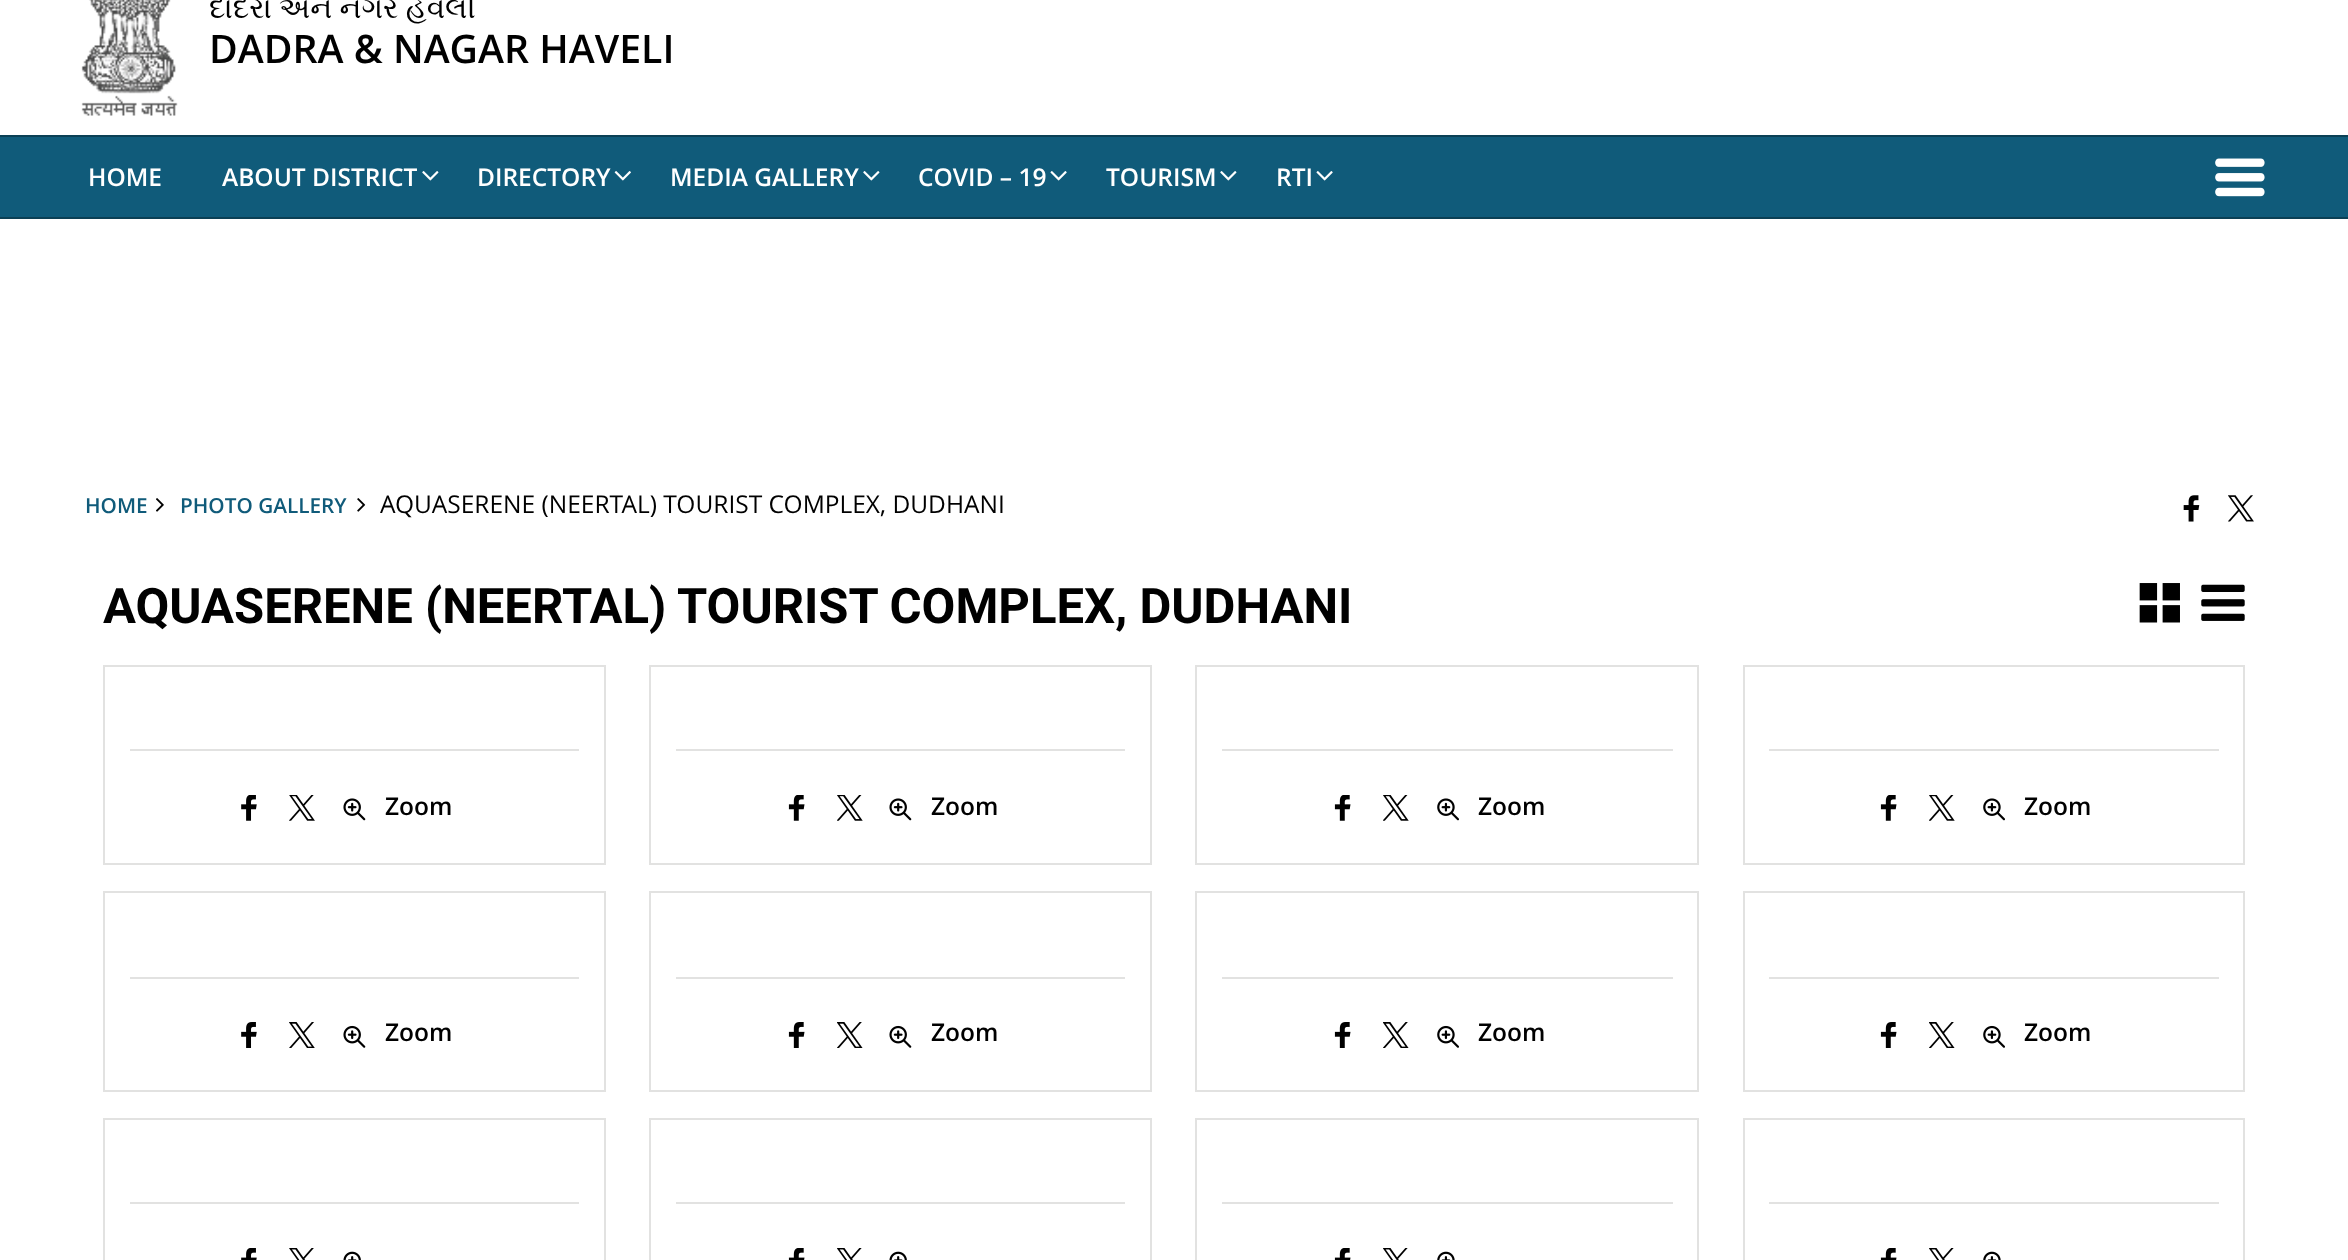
<svg xmlns="http://www.w3.org/2000/svg" width="2348" height="1260">
<rect width="100%" height="100%" fill="#fff"/>
<image x="81" y="0" width="97" height="116" href="media/1.png"/>
<text x="209" y="18" style="font-family:FreeSerif;font-size:29.5px;fill:#000">દાદરા અને નગર હવેલી</text>
<text x="209" y="63" style="font-family:Open Sans;font-size:39.25px;font-weight:600;fill:#000">DADRA &amp; NAGAR HAVELI</text>
<rect y="137" width="2348" height="80" fill="#105b7a"/>
<rect y="135" width="2348" height="2" fill="#0b4055"/>
<rect y="217" width="2348" height="2" fill="#0b4055"/>
<text x="88" y="186" style="font-family:Open Sans;font-size:24.5px;font-weight:600;fill:#fff">HOME</text>
<text x="222" y="186" style="font-family:Open Sans;font-size:24.5px;font-weight:600;fill:#fff">ABOUT DISTRICT</text>
<image x="422" y="171" width="17" height="10" href="media/2.png"/>
<text x="477" y="186" style="font-family:Open Sans;font-size:24.5px;font-weight:600;fill:#fff">DIRECTORY</text>
<image x="614" y="171" width="17" height="10" href="media/3.png"/>
<text x="670" y="186" style="font-family:Open Sans;font-size:24.5px;font-weight:600;fill:#fff">MEDIA GALLERY</text>
<image x="863" y="171" width="17" height="10" href="media/2.png"/>
<text x="918" y="186" style="font-family:Open Sans;font-size:24.5px;font-weight:600;fill:#fff">COVID – 19</text>
<image x="1050" y="171" width="17" height="10" href="media/4.png"/>
<text x="1106" y="186" style="font-family:Open Sans;font-size:24.5px;font-weight:600;fill:#fff">TOURISM</text>
<image x="1220" y="171" width="17" height="10" href="media/2.png"/>
<text x="1276" y="186" style="font-family:Open Sans;font-size:24.5px;font-weight:600;fill:#fff">RTI</text>
<image x="1316" y="171" width="17" height="10" href="media/4.png"/>
<image x="2215" y="158" width="50" height="39" href="media/5.png"/>
<text x="85" y="513" style="font-family:Open Sans;font-size:20.75px;font-weight:600;fill:#105b7a">HOME</text>
<image x="156" y="498" width="8" height="14" href="media/6.png"/>
<text x="180" y="513" style="font-family:Open Sans;font-size:20.75px;font-weight:600;fill:#105b7a">PHOTO GALLERY</text>
<image x="357" y="498" width="9" height="14" href="media/7.png"/>
<text x="380" y="513" style="font-family:Open Sans;font-size:24.5px;fill:#000">AQUASERENE (NEERTAL) TOURIST COMPLEX, DUDHANI</text>
<image x="2183" y="495" width="17" height="27" href="media/8.png"/>
<image x="2228" y="495" width="26" height="27" href="media/9.png"/>
<text x="103" y="623" style="font-family:Roboto;font-size:49px;font-weight:bold;fill:#000">AQUASERENE (NEERTAL) TOURIST COMPLEX, DUDHANI</text>
<image x="2139" y="583" width="41" height="40" href="media/10.png"/>
<image x="2201" y="584" width="44" height="37" href="media/11.png"/>
<rect x="104" y="666" width="501" height="198" fill="none" stroke="#e2e2e1" stroke-width="2"/>
<rect x="130" y="749" width="449" height="2" fill="#e2e2e1"/>
<image x="241" y="795" width="16" height="26" href="media/12.png"/>
<image x="289" y="795" width="26" height="26" href="media/13.png"/>
<image x="343" y="798" width="23" height="23" href="media/14.png"/>
<text x="385" y="815" style="font-family:Open Sans;font-size:24.5px;font-weight:600;fill:#000">Zoom</text>
<rect x="650" y="666" width="501" height="198" fill="none" stroke="#e2e2e1" stroke-width="2"/>
<rect x="676" y="749" width="449" height="2" fill="#e2e2e1"/>
<image x="788" y="795" width="17" height="26" href="media/15.png"/>
<image x="837" y="795" width="26" height="26" href="media/16.png"/>
<image x="889" y="798" width="23" height="23" href="media/14.png"/>
<text x="931" y="815" style="font-family:Open Sans;font-size:24.5px;font-weight:600;fill:#000">Zoom</text>
<rect x="1196" y="666" width="502" height="198" fill="none" stroke="#e2e2e1" stroke-width="2"/>
<rect x="1222" y="749" width="451" height="2" fill="#e2e2e1"/>
<image x="1334" y="795" width="17" height="26" href="media/15.png"/>
<image x="1383" y="795" width="26" height="26" href="media/16.png"/>
<image x="1437" y="798" width="22" height="23" href="media/17.png"/>
<text x="1478" y="815" style="font-family:Open Sans;font-size:24.5px;font-weight:600;fill:#000">Zoom</text>
<rect x="1744" y="666" width="500" height="198" fill="none" stroke="#e2e2e1" stroke-width="2"/>
<rect x="1769" y="749" width="450" height="2" fill="#e2e2e1"/>
<image x="1880" y="795" width="17" height="26" href="media/15.png"/>
<image x="1929" y="795" width="26" height="26" href="media/16.png"/>
<image x="1983" y="798" width="22" height="23" href="media/17.png"/>
<text x="2024" y="815" style="font-family:Open Sans;font-size:24.5px;font-weight:600;fill:#000">Zoom</text>
<rect x="104" y="892" width="501" height="199" fill="none" stroke="#e2e2e1" stroke-width="2"/>
<rect x="130" y="977" width="449" height="2" fill="#e2e2e1"/>
<image x="241" y="1022" width="16" height="26" href="media/18.png"/>
<image x="289" y="1022" width="26" height="26" href="media/19.png"/>
<image x="343" y="1025" width="23" height="23" href="media/20.png"/>
<text x="385" y="1041" style="font-family:Open Sans;font-size:24.5px;font-weight:600;fill:#000">Zoom</text>
<rect x="650" y="892" width="501" height="199" fill="none" stroke="#e2e2e1" stroke-width="2"/>
<rect x="676" y="977" width="449" height="2" fill="#e2e2e1"/>
<image x="788" y="1022" width="17" height="26" href="media/21.png"/>
<image x="837" y="1022" width="26" height="26" href="media/22.png"/>
<image x="889" y="1025" width="23" height="23" href="media/20.png"/>
<text x="931" y="1041" style="font-family:Open Sans;font-size:24.5px;font-weight:600;fill:#000">Zoom</text>
<rect x="1196" y="892" width="502" height="199" fill="none" stroke="#e2e2e1" stroke-width="2"/>
<rect x="1222" y="977" width="451" height="2" fill="#e2e2e1"/>
<image x="1334" y="1022" width="17" height="26" href="media/21.png"/>
<image x="1383" y="1022" width="26" height="26" href="media/22.png"/>
<image x="1437" y="1025" width="22" height="23" href="media/23.png"/>
<text x="1478" y="1041" style="font-family:Open Sans;font-size:24.5px;font-weight:600;fill:#000">Zoom</text>
<rect x="1744" y="892" width="500" height="199" fill="none" stroke="#e2e2e1" stroke-width="2"/>
<rect x="1769" y="977" width="450" height="2" fill="#e2e2e1"/>
<image x="1880" y="1022" width="17" height="26" href="media/21.png"/>
<image x="1929" y="1022" width="26" height="26" href="media/22.png"/>
<image x="1983" y="1025" width="22" height="23" href="media/23.png"/>
<text x="2024" y="1041" style="font-family:Open Sans;font-size:24.5px;font-weight:600;fill:#000">Zoom</text>
<rect x="104" y="1119" width="501" height="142" fill="none" stroke="#e2e2e1" stroke-width="2"/>
<rect x="130" y="1202" width="449" height="2" fill="#e2e2e1"/>
<image x="241" y="1248" width="16" height="12" href="media/24.png"/>
<image x="289" y="1248" width="25" height="12" href="media/25.png"/>
<image x="343" y="1251" width="18" height="9" href="media/26.png"/>
<rect x="650" y="1119" width="501" height="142" fill="none" stroke="#e2e2e1" stroke-width="2"/>
<rect x="676" y="1202" width="449" height="2" fill="#e2e2e1"/>
<image x="788" y="1248" width="17" height="12" href="media/27.png"/>
<image x="837" y="1248" width="25" height="12" href="media/28.png"/>
<image x="889" y="1251" width="18" height="9" href="media/26.png"/>
<rect x="1196" y="1119" width="502" height="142" fill="none" stroke="#e2e2e1" stroke-width="2"/>
<rect x="1222" y="1202" width="451" height="2" fill="#e2e2e1"/>
<image x="1334" y="1248" width="17" height="12" href="media/27.png"/>
<image x="1383" y="1248" width="25" height="12" href="media/28.png"/>
<image x="1437" y="1251" width="18" height="9" href="media/29.png"/>
<rect x="1744" y="1119" width="500" height="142" fill="none" stroke="#e2e2e1" stroke-width="2"/>
<rect x="1769" y="1202" width="450" height="2" fill="#e2e2e1"/>
<image x="1880" y="1248" width="17" height="12" href="media/27.png"/>
<image x="1929" y="1248" width="25" height="12" href="media/28.png"/>
<image x="1983" y="1251" width="18" height="9" href="media/29.png"/>
</svg>
